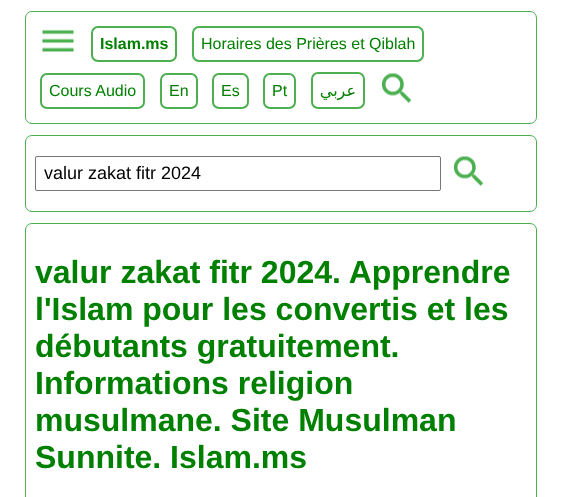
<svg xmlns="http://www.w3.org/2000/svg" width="562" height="497">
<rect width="100%" height="100%" fill="#fff"/>
<rect x="25.5" y="11.5" width="511" height="112" rx="6.5" fill="none" stroke="#4caf50"/>
<image x="42" y="29" width="32" height="23" href="media/1.png"/>
<rect x="92" y="27" width="84" height="34" rx="6" fill="none" stroke="#4caf50" stroke-width="2"/>
<text x="100" y="49" style="font-family:Liberation Sans;font-size:16px;font-weight:bold;fill:#008000">Islam.ms</text>
<rect x="193" y="27" width="230" height="34" rx="6" fill="none" stroke="#4caf50" stroke-width="2"/>
<text x="201" y="49" style="font-family:Liberation Sans;font-size:16px;fill:#008000">Horaires des Prières et Qiblah</text>
<rect x="41" y="74" width="103" height="34" rx="6" fill="none" stroke="#4caf50" stroke-width="2"/>
<text x="49" y="96" style="font-family:Liberation Sans;font-size:16px;fill:#008000">Cours Audio</text>
<rect x="161" y="74" width="36" height="34" rx="6" fill="none" stroke="#4caf50" stroke-width="2"/>
<text x="169" y="96" style="font-family:Liberation Sans;font-size:16px;fill:#008000">En</text>
<rect x="213" y="74" width="35" height="34" rx="6" fill="none" stroke="#4caf50" stroke-width="2"/>
<text x="221" y="96" style="font-family:Liberation Sans;font-size:16px;fill:#008000">Es</text>
<rect x="264" y="74" width="31" height="34" rx="6" fill="none" stroke="#4caf50" stroke-width="2"/>
<text x="272" y="96" style="font-family:Liberation Sans;font-size:16px;fill:#008000">Pt</text>
<rect x="312" y="73" width="52" height="35" rx="6" fill="none" stroke="#4caf50" stroke-width="2"/>
<text x="356" y="96" style="font-family:DejaVu Sans;font-size:16px;direction:rtl;fill:#008000">عربي</text>
<image x="382" y="73" width="30" height="31" href="media/2.png"/>
<rect x="25.5" y="135.5" width="511" height="76" rx="6.5" fill="none" stroke="#4caf50"/>
<rect x="35.5" y="156.5" width="405" height="34" rx="1.5" fill="none" stroke="#767676"/>
<text x="44" y="179" style="font-family:Liberation Sans;font-size:18px;fill:#000">valur zakat fitr 2024</text>
<image x="454" y="156" width="30" height="31" href="media/2.png"/>
<rect x="25.5" y="223.5" width="511" height="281" rx="6.5" fill="none" stroke="#4caf50"/>
<text x="35" y="283" style="font-family:Liberation Sans;font-size:32px;font-weight:bold;fill:#008000">valur zakat fitr 2024. Apprendre</text>
<text x="35" y="320" style="font-family:Liberation Sans;font-size:32px;font-weight:bold;fill:#008000">l'Islam pour les convertis et les</text>
<text x="35" y="357" style="font-family:Liberation Sans;font-size:32px;font-weight:bold;fill:#008000">débutants gratuitement.</text>
<text x="35" y="394" style="font-family:Liberation Sans;font-size:32px;font-weight:bold;fill:#008000">Informations religion</text>
<text x="35" y="431" style="font-family:Liberation Sans;font-size:32px;font-weight:bold;fill:#008000">musulmane. Site Musulman</text>
<text x="35" y="468" style="font-family:Liberation Sans;font-size:32px;font-weight:bold;fill:#008000">Sunnite. Islam.ms</text>
</svg>
